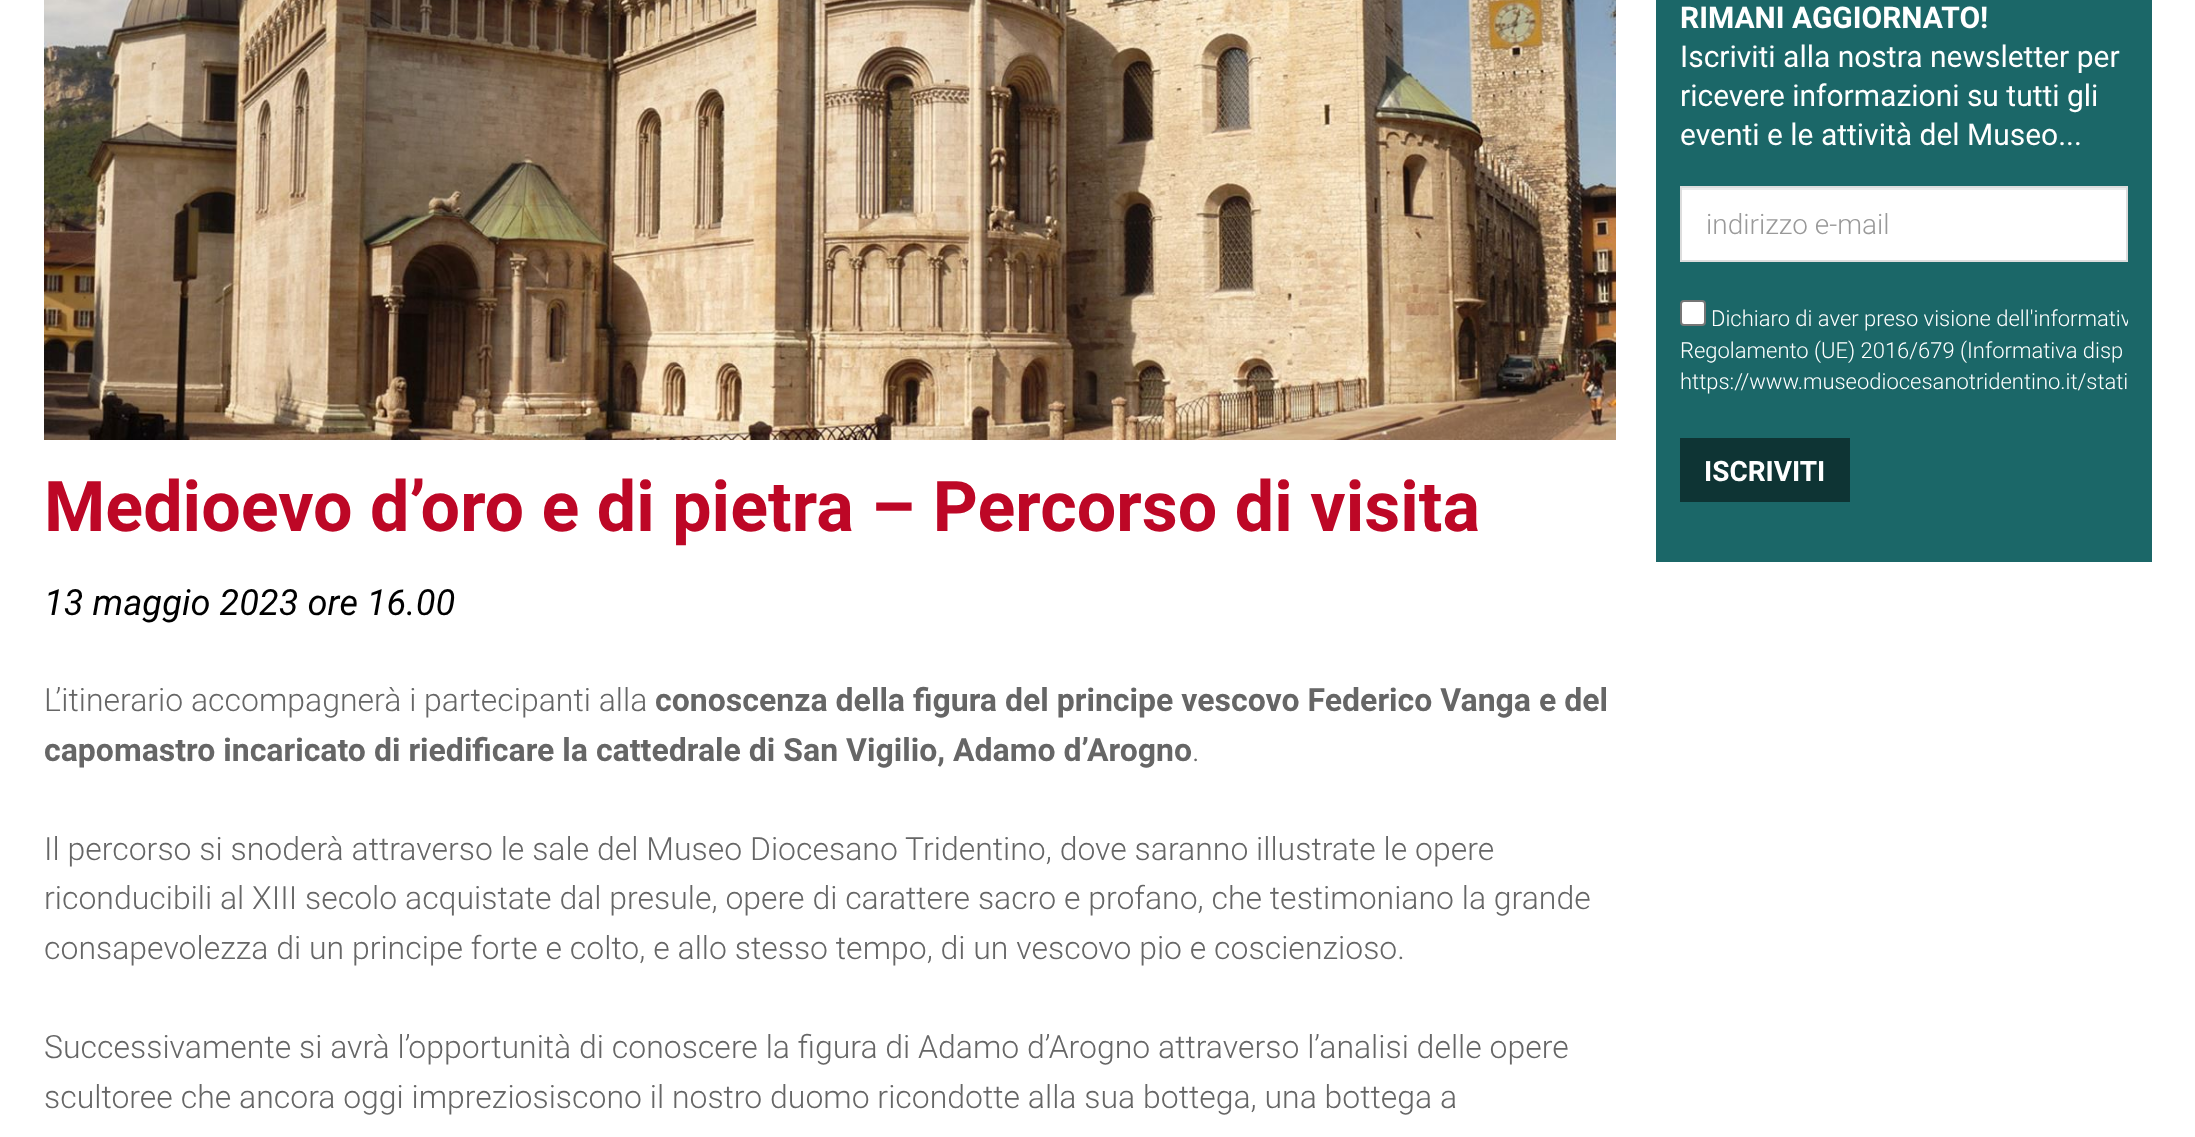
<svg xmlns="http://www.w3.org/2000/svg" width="2195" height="1137">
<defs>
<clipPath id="clip1"><rect x="1680" width="448" height="532"/></clipPath>
</defs>
<rect width="100%" height="100%" fill="#fff"/>
<rect x="1656" width="496" height="562" fill="#1b6768"/>
<text x="1680" y="28" style="font-family:Roboto;font-size:30px;font-weight:bold;fill:#fff">RIMANI AGGIORNATO!</text>
<text x="1680" y="67" style="font-family:Roboto;font-size:30px;fill:#fff">Iscriviti alla nostra newsletter per</text>
<text x="1680" y="106" style="font-family:Roboto;font-size:30px;fill:#fff">ricevere informazioni su tutti gli</text>
<text x="1680" y="145" style="font-family:Roboto;font-size:30px;fill:#fff">eventi e le attività del Museo...</text>
<rect x="1682" y="190" width="444" height="70" fill="#fff"/>
<rect x="1682" y="188" width="444" height="2" fill="#ececec"/>
<rect x="1681" y="187" width="446" height="74" fill="none" stroke="#ddd" stroke-width="2"/>
<text x="1706" y="234" style="font-family:Roboto;font-size:28px;font-weight:300;fill:#999">indirizzo e-mail</text>
<rect x="1681" y="301" width="24" height="24" rx="3" fill="#fff" stroke="#767676" stroke-width="2"/>
<g clip-path="url(#clip1)">
<text x="1711" y="326" style="font-family:Roboto;font-size:22px;font-weight:300;fill:#fff">Dichiaro di aver preso visione dell'informativ</text>
</g>
<text x="1680" y="358" style="font-family:Roboto;font-size:22px;font-weight:300;fill:#fff">Regolamento (UE) 2016/679 (Informativa disp</text>
<text x="1680" y="389" style="font-family:Roboto;font-size:22px;font-weight:300;fill:#fff">https://www.museodiocesanotridentino.it/stati</text>
<rect x="1680" y="438" width="170" height="64" fill="#0e3434"/>
<text x="1704" y="481" style="font-family:Roboto;font-size:28px;font-weight:bold;fill:#fff">ISCRIVITI</text>
<image x="44" y="0" width="1572" height="440" href="media/1.png"/>
<text x="44" y="531" style="font-family:Roboto;font-size:70px;font-weight:bold;fill:#bd0726">Medioevo d’oro e di pietra – Percorso di visita</text>
<text x="44" y="615" style="font-family:Roboto;font-size:36px;font-style:italic;fill:#000">13 maggio 2023 ore 16.00</text>
<text x="44" y="711" style="font-family:Roboto;font-size:32px;font-weight:300;fill:#666">L’itinerario accompagnerà i partecipanti alla</text>
<text x="655" y="711" style="font-family:Roboto;font-size:32px;font-weight:bold;fill:#666">conoscenza della figura del principe vescovo Federico Vanga e del</text>
<text x="44" y="761" style="font-family:Roboto;font-size:32px;font-weight:bold;fill:#666">capomastro incaricato di riedificare la cattedrale di San Vigilio, Adamo d’Arogno</text>
<text x="1192" y="761" style="font-family:Roboto;font-size:32px;font-weight:300;fill:#666">.</text>
<text x="44" y="860" style="font-family:Roboto;font-size:32px;font-weight:300;fill:#666">Il percorso si snoderà attraverso le sale del Museo Diocesano Tridentino, dove saranno illustrate le opere</text>
<text x="44" y="909" style="font-family:Roboto;font-size:32px;font-weight:300;fill:#666">riconducibili al XIII secolo acquistate dal presule, opere di carattere sacro e profano, che testimoniano la grande</text>
<text x="44" y="959" style="font-family:Roboto;font-size:32px;font-weight:300;fill:#666">consapevolezza di un principe forte e colto, e allo stesso tempo, di un vescovo pio e coscienzioso.</text>
<text x="44" y="1058" style="font-family:Roboto;font-size:32px;font-weight:300;fill:#666">Successivamente si avrà l’opportunità di conoscere la figura di Adamo d’Arogno attraverso l’analisi delle opere</text>
<text x="44" y="1108" style="font-family:Roboto;font-size:32px;font-weight:300;fill:#666">scultoree che ancora oggi impreziosiscono il nostro duomo ricondotte alla sua bottega, una bottega a</text>
</svg>
